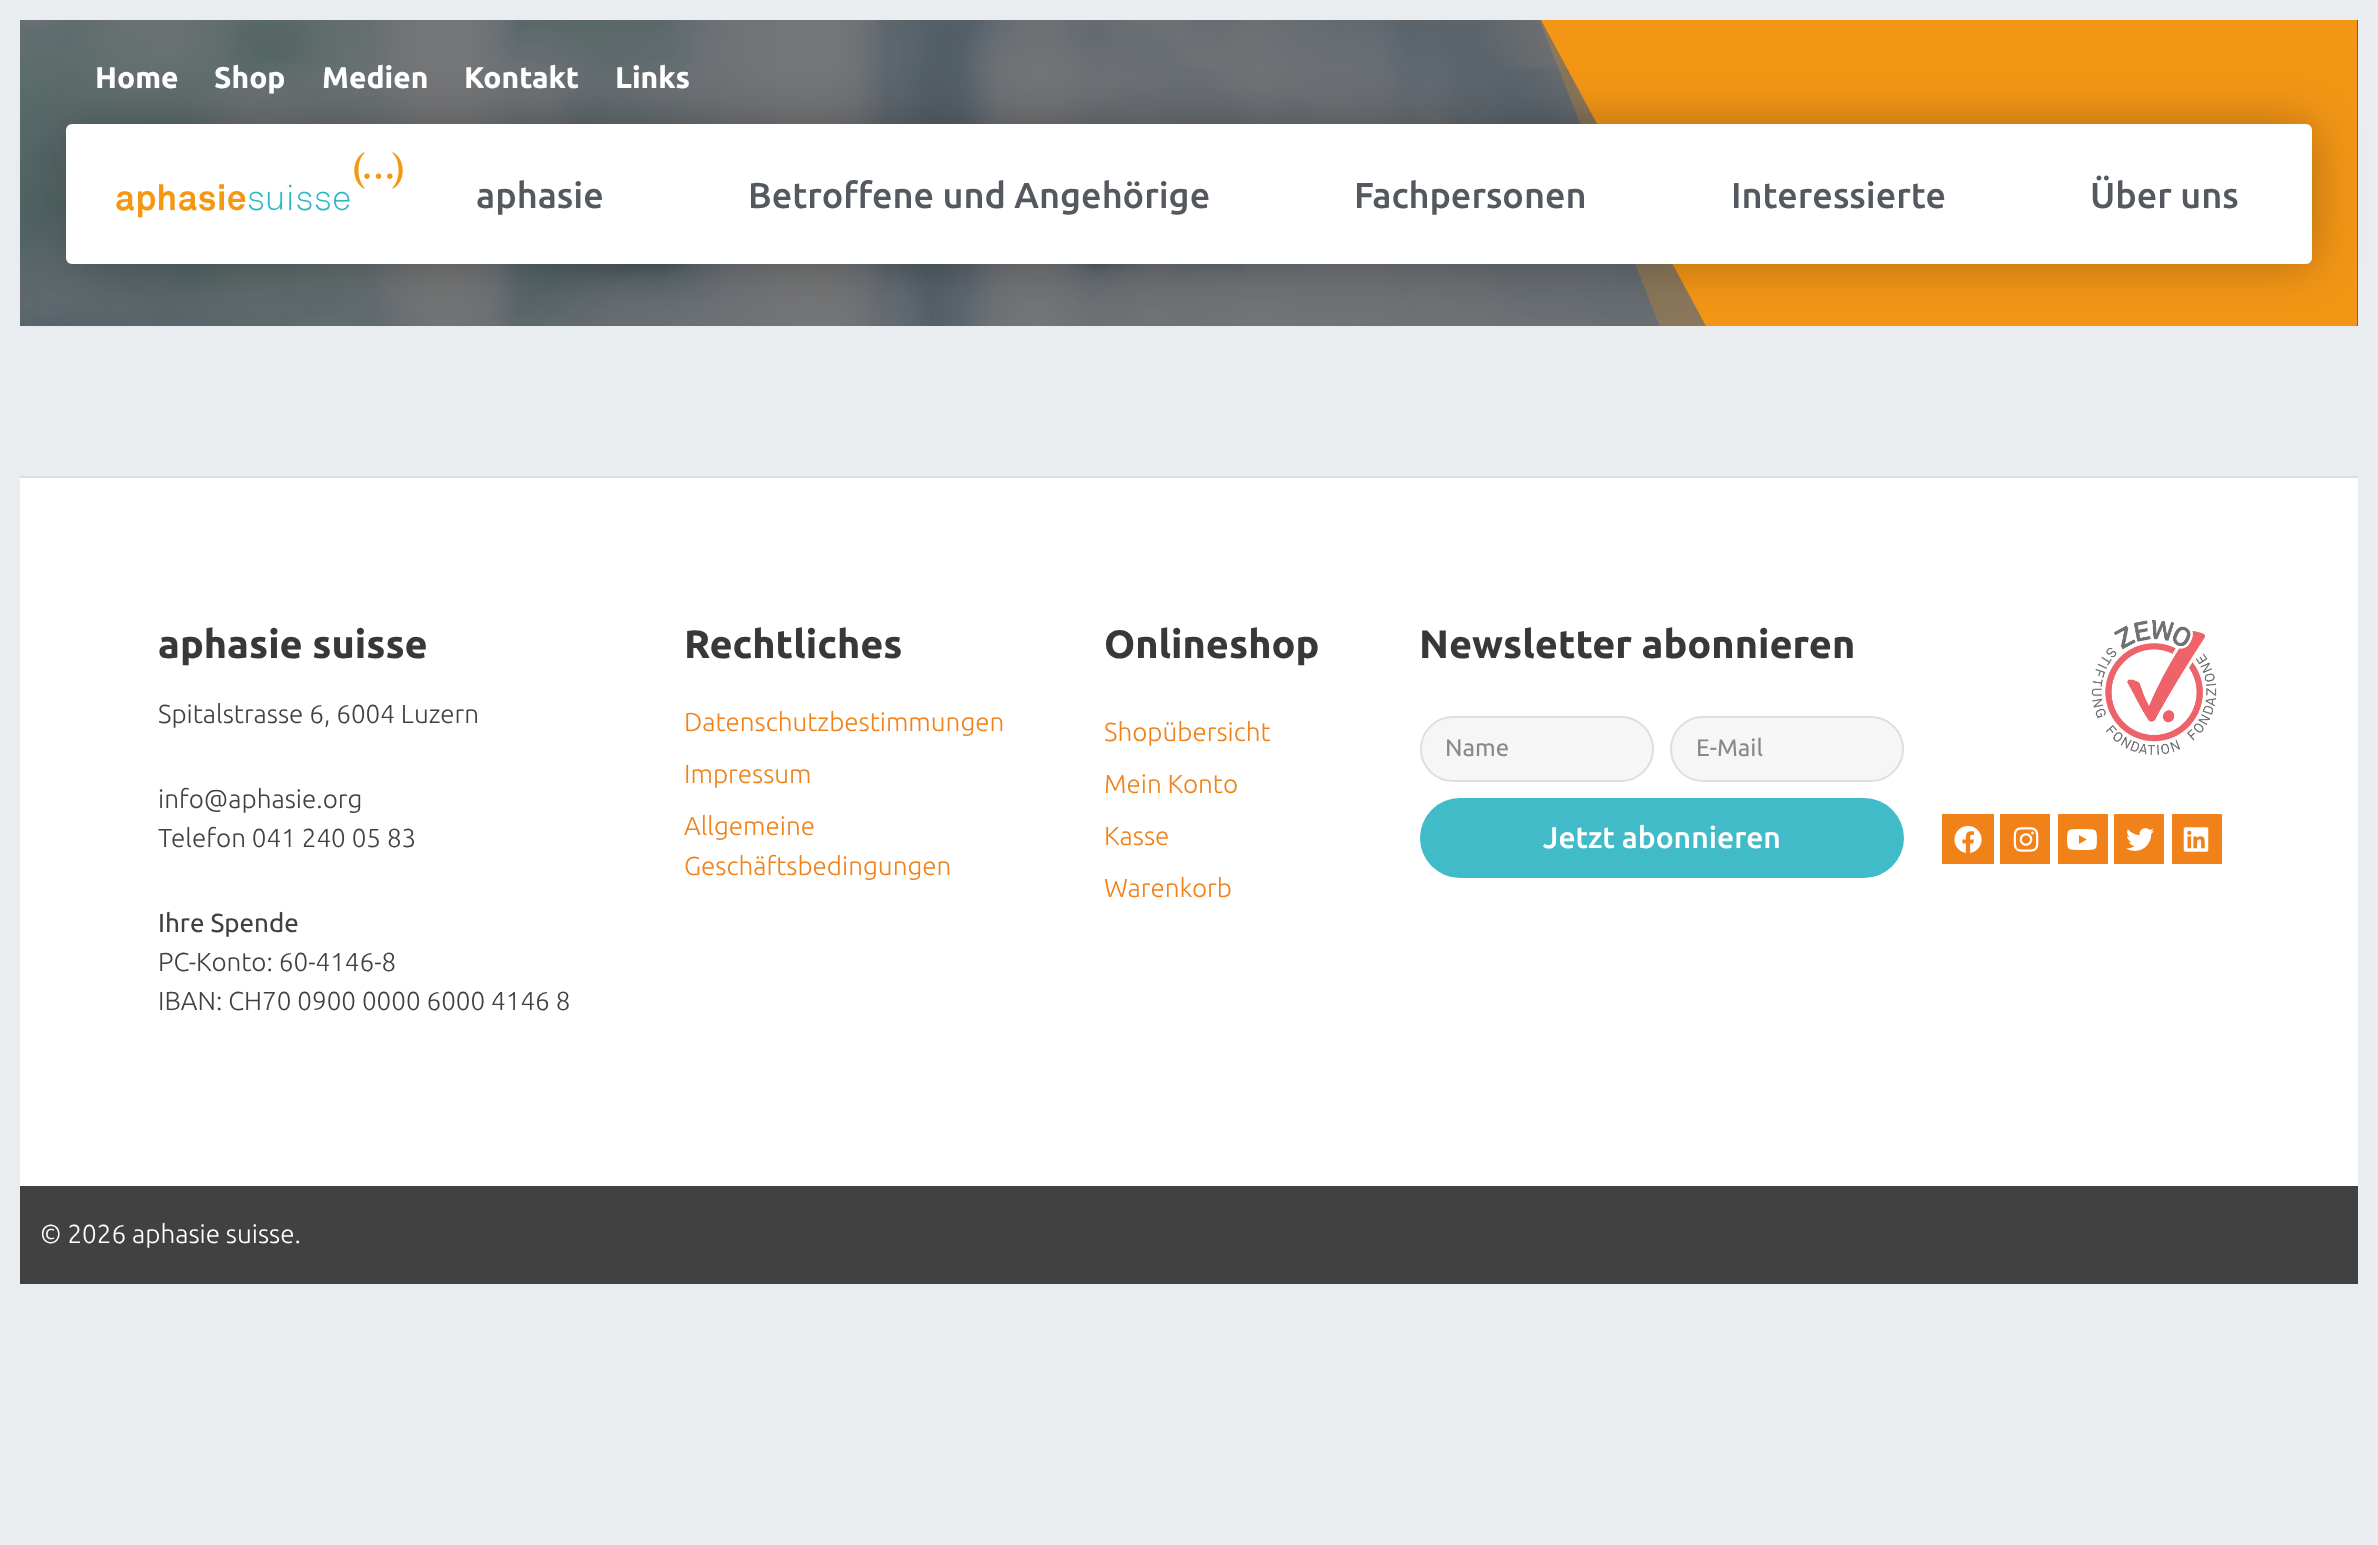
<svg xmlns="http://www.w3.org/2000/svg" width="2378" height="1545">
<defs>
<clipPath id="clip1"><rect x="20" y="20" width="2338" height="306"/></clipPath>
</defs>
<rect width="100%" height="100%" fill="#eaedef"/>
<image x="20" y="20" width="2338" height="306" href="media/1.png"/>
<g clip-path="url(#clip1)">
<path d="M1731 508h626v-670h-889z" fill="#f3961640"/>
<path d="M1804 508h553v-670h-914z" fill="#f39616"/>
</g>
<rect x="66" y="124" width="2246" height="140" rx="6" fill="#00000047" filter="blur(25px)"/>
<text x="95" y="88" style="font-family:Ubuntu;font-size:30px;font-weight:bold;fill:#fff">Home</text>
<text x="214" y="88" style="font-family:Ubuntu;font-size:30px;font-weight:bold;fill:#fff">Shop</text>
<text x="322" y="88" style="font-family:Ubuntu;font-size:30px;font-weight:bold;fill:#fff">Medien</text>
<text x="464" y="88" style="font-family:Ubuntu;font-size:30px;font-weight:bold;fill:#fff">Kontakt</text>
<text x="615" y="88" style="font-family:Ubuntu;font-size:30px;font-weight:bold;fill:#fff">Links</text>
<rect x="66" y="124" width="2246" height="140" rx="6" fill="#fff"/>
<image x="116" y="152" width="287" height="66" href="media/2.png"/>
<text x="476" y="208" style="font-family:Ubuntu;font-size:36px;font-weight:500;fill:#54595f">aphasie</text>
<text x="748" y="208" style="font-family:Ubuntu;font-size:36px;font-weight:500;fill:#54595f">Betroffene und Angehörige</text>
<text x="1354" y="208" style="font-family:Ubuntu;font-size:36px;font-weight:500;fill:#54595f">Fachpersonen</text>
<text x="1731" y="208" style="font-family:Ubuntu;font-size:36px;font-weight:500;fill:#54595f">Interessierte</text>
<text x="2090" y="208" style="font-family:Ubuntu;font-size:36px;font-weight:500;fill:#54595f">Über uns</text>
<rect x="20" y="478" width="2338" height="708" fill="#fff"/>
<rect x="20" y="476" width="2338" height="2" fill="#dedede"/>
<text x="158" y="658" style="font-family:Ubuntu;font-size:39.6px;font-weight:bold;fill:#383838">aphasie suisse</text>
<text x="158" y="723" style="font-family:Ubuntu;font-size:26px;font-weight:300;fill:#414141">Spitalstrasse 6, 6004 Luzern</text>
<text x="158" y="808" style="font-family:Ubuntu;font-size:26px;font-weight:300;fill:#414141">info@aphasie.org</text>
<text x="158" y="847" style="font-family:Ubuntu;font-size:26px;font-weight:300;fill:#414141">Telefon 041 240 05 83</text>
<text x="158" y="932" style="font-family:Ubuntu;font-size:26px;fill:#414141">Ihre Spende</text>
<text x="158" y="971" style="font-family:Ubuntu;font-size:26px;font-weight:300;fill:#414141">PC-Konto: 60-4146-8</text>
<text x="158" y="1010" style="font-family:Ubuntu;font-size:26px;font-weight:300;fill:#414141">IBAN: CH70 0900 0000 6000 4146 8</text>
<text x="684" y="658" style="font-family:Ubuntu;font-size:39.6px;font-weight:bold;fill:#383838">Rechtliches</text>
<text x="684" y="731" style="font-family:Ubuntu;font-size:26px;font-weight:300;fill:#f08219">Datenschutzbestimmungen</text>
<text x="684" y="783" style="font-family:Ubuntu;font-size:26px;font-weight:300;fill:#f08219">Impressum</text>
<text x="684" y="835" style="font-family:Ubuntu;font-size:26px;font-weight:300;fill:#f08219">Allgemeine</text>
<text x="684" y="875" style="font-family:Ubuntu;font-size:26px;font-weight:300;fill:#f08219">Geschäftsbedingungen</text>
<text x="1104" y="658" style="font-family:Ubuntu;font-size:39.6px;font-weight:bold;fill:#383838">Onlineshop</text>
<text x="1104" y="741" style="font-family:Ubuntu;font-size:26px;font-weight:300;fill:#f08219">Shopübersicht</text>
<text x="1104" y="793" style="font-family:Ubuntu;font-size:26px;font-weight:300;fill:#f08219">Mein Konto</text>
<text x="1104" y="845" style="font-family:Ubuntu;font-size:26px;font-weight:300;fill:#f08219">Kasse</text>
<text x="1104" y="897" style="font-family:Ubuntu;font-size:26px;font-weight:300;fill:#f08219">Warenkorb</text>
<text x="1419" y="658" style="font-family:Ubuntu;font-size:39.6px;font-weight:bold;fill:#383838">Newsletter abonnieren</text>
<rect x="1421" y="717" width="232" height="64" rx="32" fill="#f6f6f6" stroke="#dedede" stroke-width="2"/>
<text x="1445" y="756" style="font-family:Ubuntu;font-size:24px;fill:#898989">Name</text>
<rect x="1671" y="717" width="232" height="64" rx="32" fill="#f6f6f6" stroke="#dedede" stroke-width="2"/>
<text x="1696" y="756" style="font-family:Ubuntu;font-size:24px;fill:#898989">E-Mail</text>
<rect x="1420" y="798" width="484" height="80" rx="40" fill="#42bbc9"/>
<text x="1543" y="848" style="font-family:Ubuntu;font-size:30px;font-weight:500;fill:#fff">Jetzt abonnieren</text>
<image x="2091" y="620" width="126" height="135" href="media/3.png"/>
<rect x="1942" y="814" width="52" height="50" fill="#f08219"/>
<image x="1954" y="825" width="28" height="28" href="media/4.png"/>
<rect x="2000" y="814" width="50" height="50" fill="#f08219"/>
<image x="2013" y="827" width="26" height="25" href="media/5.png"/>
<rect x="2058" y="814" width="50" height="50" fill="#f08219"/>
<image x="2067" y="829" width="30" height="21" href="media/6.png"/>
<rect x="2114" y="814" width="50" height="50" fill="#f08219"/>
<image x="2126" y="828" width="28" height="23" href="media/7.png"/>
<rect x="2172" y="814" width="50" height="50" fill="#f08219"/>
<image x="2183" y="827" width="26" height="25" href="media/8.png"/>
<rect x="20" y="1186" width="2338" height="98" fill="#414141"/>
<text x="40" y="1243" style="font-family:Ubuntu;font-size:26px;font-weight:300;fill:#fff">© 2026 aphasie suisse.</text>
</svg>
